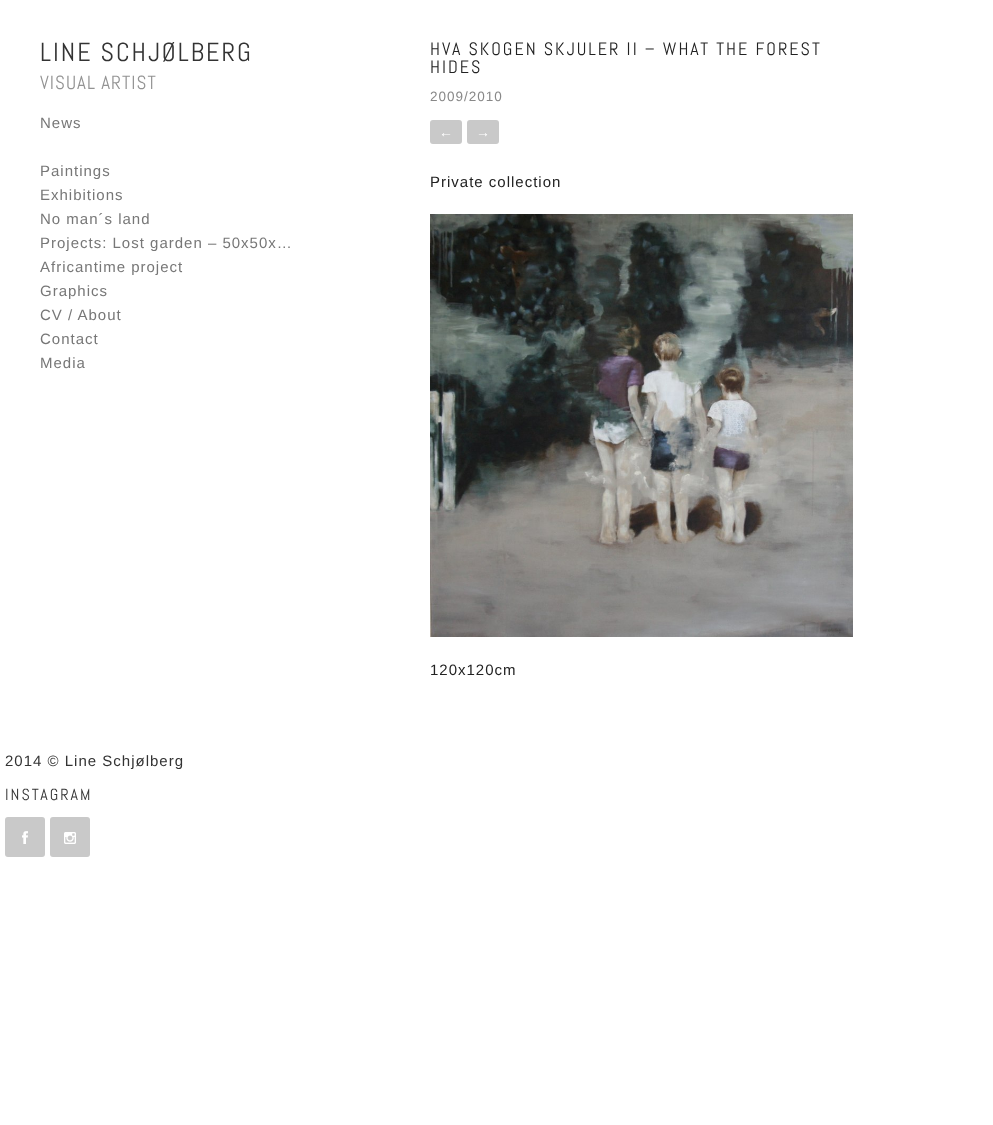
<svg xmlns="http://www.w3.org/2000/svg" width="993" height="1125">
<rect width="100%" height="100%" fill="#fff"/>
<text x="40" y="61" style="font-family:Abel;font-size:26px;letter-spacing:2px;fill:#333">LINE SCHJØLBERG</text>
<text x="40" y="89" style="font-family:Abel;font-size:19px;letter-spacing:1px;fill:#939393">VISUAL ARTIST</text>
<text x="40" y="128" style="font-family:Liberation Sans;font-size:15px;letter-spacing:1px;fill:#777">News</text>
<text x="40" y="176" style="font-family:Liberation Sans;font-size:15px;letter-spacing:1px;fill:#777">Paintings</text>
<text x="40" y="200" style="font-family:Liberation Sans;font-size:15px;letter-spacing:1px;fill:#777">Exhibitions</text>
<text x="40" y="224" style="font-family:Liberation Sans;font-size:15px;letter-spacing:1px;fill:#777">No man´s land</text>
<text x="40" y="248" style="font-family:Liberation Sans;font-size:15px;letter-spacing:1px;fill:#777">Projects: Lost garden – 50x50x…</text>
<text x="40" y="272" style="font-family:Liberation Sans;font-size:15px;letter-spacing:1px;fill:#777">Africantime project</text>
<text x="40" y="296" style="font-family:Liberation Sans;font-size:15px;letter-spacing:1px;fill:#777">Graphics</text>
<text x="40" y="320" style="font-family:Liberation Sans;font-size:15px;letter-spacing:1px;fill:#777">CV / About</text>
<text x="40" y="344" style="font-family:Liberation Sans;font-size:15px;letter-spacing:1px;fill:#777">Contact</text>
<text x="40" y="368" style="font-family:Liberation Sans;font-size:15px;letter-spacing:1px;fill:#777">Media</text>
<text x="430" y="55" style="font-family:Abel;font-size:18px;letter-spacing:2px;fill:#222">HVA SKOGEN SKJULER II – WHAT THE FOREST</text>
<text x="430" y="73" style="font-family:Abel;font-size:18px;letter-spacing:2px;fill:#222">HIDES</text>
<text x="430" y="101" style="font-family:Liberation Sans;font-size:13.5px;letter-spacing:1px;fill:#888">2009/2010</text>
<rect x="430" y="120" width="32" height="24" rx="3" fill="#c9c9c9"/>
<text x="439" y="137" style="font-family:Liberation Sans;font-size:14px;font-weight:bold;fill:#fff">←</text>
<rect x="467" y="120" width="32" height="24" rx="3" fill="#c9c9c9"/>
<text x="476" y="137" style="font-family:Liberation Sans;font-size:14px;font-weight:bold;fill:#fff">→</text>
<text x="430" y="187" style="font-family:Liberation Sans;font-size:15px;letter-spacing:1px;fill:#222">Private collection</text>
<image x="430" y="214" width="423" height="423" href="media/1.png"/>
<text x="430" y="675" style="font-family:Liberation Sans;font-size:15px;letter-spacing:1px;fill:#222">120x120cm</text>
<text x="5" y="766" style="font-family:Liberation Sans;font-size:15px;letter-spacing:1px;fill:#333">2014 © Line Schjølberg</text>
<text x="5" y="800" style="font-family:Abel;font-size:16px;letter-spacing:2px;fill:#333">INSTAGRAM</text>
<rect x="5" y="817" width="40" height="40" rx="3" fill="#c9c9c9"/>
<image x="22" y="831" width="6" height="13" href="media/2.png"/>
<rect x="50" y="817" width="40" height="40" rx="3" fill="#c9c9c9"/>
<image x="64" y="832" width="12" height="12" href="media/3.png"/>
</svg>
